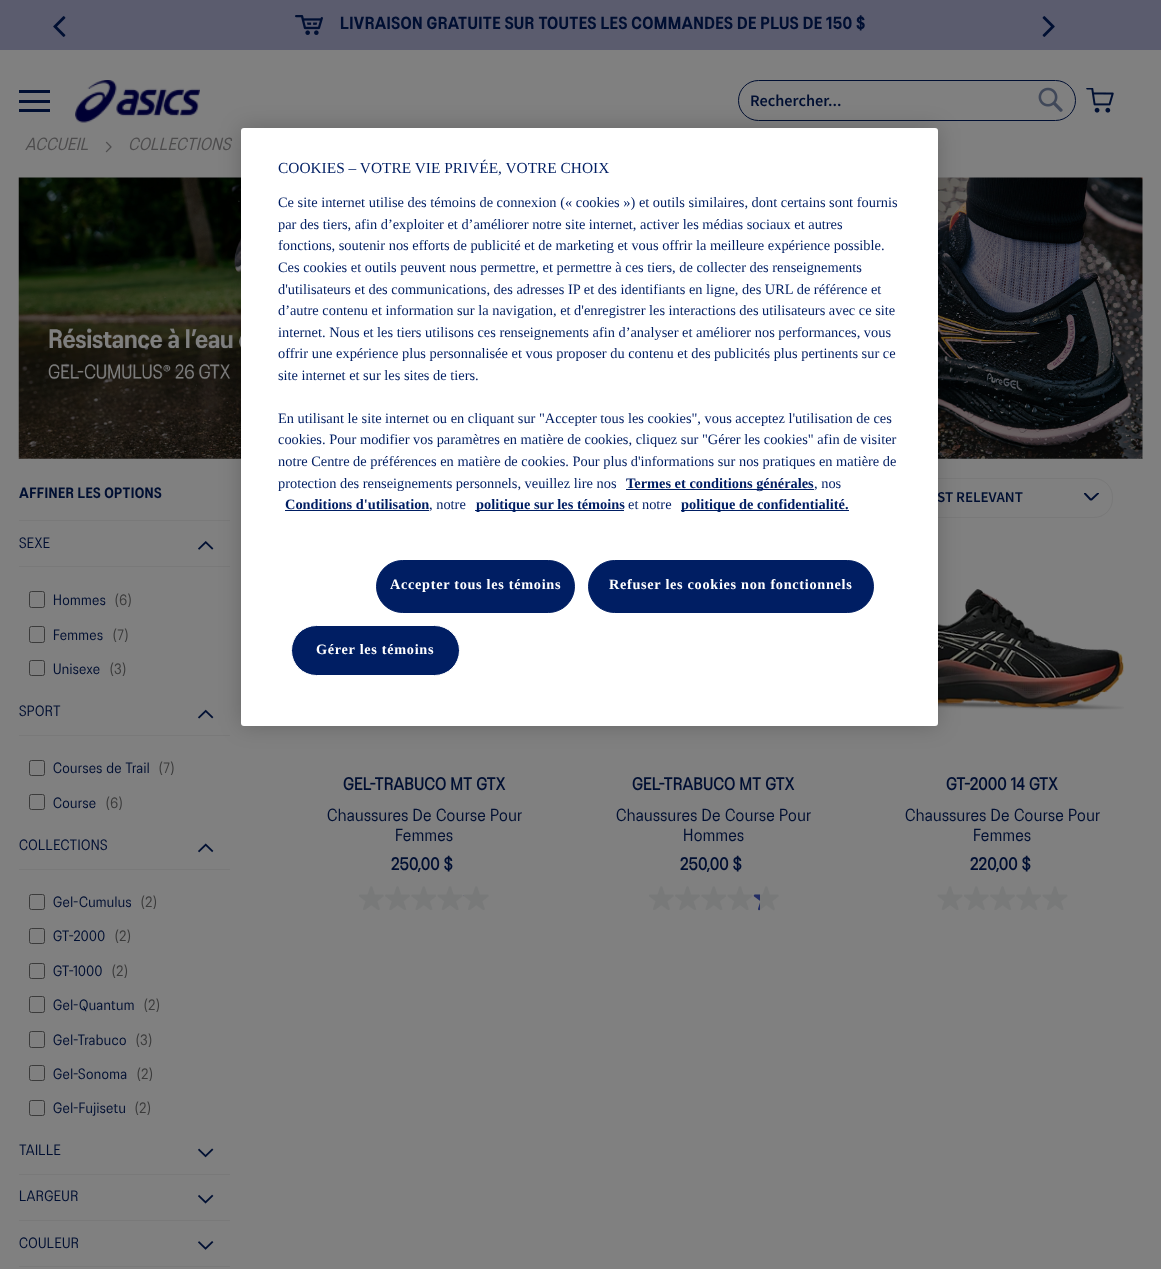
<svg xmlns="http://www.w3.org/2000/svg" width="1161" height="1269">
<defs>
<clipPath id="clip1"><rect x="1084" y="493" width="15" height="8"/></clipPath>
</defs>
<rect width="100%" height="100%" fill="#808080"/>
<rect width="1161" height="50" fill="#5b5c6e"/>
<image x="295" y="15" width="28" height="20" href="media/1.png"/>
<text x="340" y="29" style="font-family:'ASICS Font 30';font-size:17.5px;font-weight:bold;letter-spacing:0.38px;fill:#000f32">LIVRAISON GRATUITE SUR TOUTES LES COMMANDES DE PLUS DE 150 $</text>
<image x="53" y="16" width="13" height="21" href="media/2.png"/>
<image x="1042" y="16" width="13" height="21" href="media/3.png"/>
<rect x="19" y="90" width="31" height="3" fill="#000f32"/>
<rect x="19" y="100" width="31" height="3" fill="#000f32"/>
<rect x="19" y="109" width="31" height="3" fill="#000f32"/>
<image x="75" y="80" width="125" height="43" href="media/4.png"/>
<rect x="738.5" y="80.5" width="337" height="40" rx="20" fill="none" stroke="#000f32"/>
<text x="750" y="106" style="font-family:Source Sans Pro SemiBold;font-size:16.25px;font-weight:600;fill:#000f32">Rechercher...</text>
<image x="1038" y="87" width="25" height="25" href="media/5.png"/>
<image x="1086" y="88" width="28" height="25" href="media/6.png"/>
<text x="25" y="150" style="font-family:'ASICS Font 30';font-size:17.5px;font-style:italic;letter-spacing:0.38px;fill:#4d4c4d">ACCUEIL</text>
<image x="105" y="141" width="7" height="12" href="media/7.png"/>
<text x="128" y="150" style="font-family:'ASICS Font 30';font-size:17.5px;font-style:italic;letter-spacing:0.38px;fill:#4d4c4d">COLLECTIONS</text>
<image x="18" y="177" width="1125" height="282" href="media/8.png"/>
<rect x="19" y="520" width="211" height="1" fill="#797979"/>
<text x="19" y="498" style="font-family:'ASICS Font 30';font-size:15px;font-weight:bold;letter-spacing:0.38px;fill:#000f32">AFFINER LES OPTIONS</text>
<rect x="19" y="566" width="211" height="1" fill="#797979"/>
<text x="19" y="548" style="font-family:'ASICS Font 30';font-size:15px;letter-spacing:0.38px;fill:#000f32">SEXE</text>
<image x="198" y="541" width="16" height="9" href="media/9.png"/>
<rect x="29.5" y="591.5" width="15" height="16" rx="2" fill="none" stroke="#3b3b3b"/>
<text x="53" y="605" style="font-family:'ASICS Font 30';font-size:15px;letter-spacing:0.38px;fill:#000f32">Hommes</text>
<text x="115" y="605" style="font-family:'ASICS Font 30';font-size:15px;letter-spacing:0.38px;fill:#3b3b3b">(6)</text>
<rect x="29.5" y="626.5" width="15" height="16" rx="2" fill="none" stroke="#3b3b3b"/>
<text x="53" y="640" style="font-family:'ASICS Font 30';font-size:15px;letter-spacing:0.38px;fill:#000f32">Femmes</text>
<text x="113" y="640" style="font-family:'ASICS Font 30';font-size:15px;letter-spacing:0.38px;fill:#3b3b3b">(7)</text>
<rect x="29.5" y="660.5" width="15" height="15" rx="2" fill="none" stroke="#3b3b3b"/>
<text x="53" y="674" style="font-family:'ASICS Font 30';font-size:15px;letter-spacing:0.38px;fill:#000f32">Unisexe</text>
<text x="110" y="674" style="font-family:'ASICS Font 30';font-size:15px;letter-spacing:0.38px;fill:#3b3b3b">(3)</text>
<rect x="19" y="735" width="211" height="1" fill="#797979"/>
<text x="19" y="716" style="font-family:'ASICS Font 30';font-size:15px;letter-spacing:0.38px;fill:#000f32">SPORT</text>
<image x="198" y="709" width="16" height="10" href="media/10.png"/>
<rect x="29.5" y="760.5" width="15" height="15" rx="2" fill="none" stroke="#3b3b3b"/>
<text x="53" y="773" style="font-family:'ASICS Font 30';font-size:15px;letter-spacing:0.38px;fill:#000f32">Courses de Trail</text>
<text x="159" y="773" style="font-family:'ASICS Font 30';font-size:15px;letter-spacing:0.38px;fill:#3b3b3b">(7)</text>
<rect x="29.5" y="794.5" width="15" height="15" rx="2" fill="none" stroke="#3b3b3b"/>
<text x="53" y="808" style="font-family:'ASICS Font 30';font-size:15px;letter-spacing:0.38px;fill:#000f32">Course</text>
<text x="106" y="808" style="font-family:'ASICS Font 30';font-size:15px;letter-spacing:0.38px;fill:#3b3b3b">(6)</text>
<rect x="19" y="869" width="211" height="1" fill="#797979"/>
<text x="19" y="850" style="font-family:'ASICS Font 30';font-size:15px;letter-spacing:0.38px;fill:#000f32">COLLECTIONS</text>
<image x="198" y="843" width="16" height="10" href="media/11.png"/>
<rect x="29.5" y="894.5" width="15" height="15" rx="2" fill="none" stroke="#3b3b3b"/>
<text x="53" y="907" style="font-family:'ASICS Font 30';font-size:15px;letter-spacing:0.38px;fill:#000f32">Gel-Cumulus</text>
<text x="141" y="907" style="font-family:'ASICS Font 30';font-size:15px;letter-spacing:0.38px;fill:#3b3b3b">(2)</text>
<rect x="29.5" y="928.5" width="15" height="15" rx="2" fill="none" stroke="#3b3b3b"/>
<text x="53" y="941" style="font-family:'ASICS Font 30';font-size:15px;letter-spacing:0.38px;fill:#000f32">GT-2000</text>
<text x="115" y="941" style="font-family:'ASICS Font 30';font-size:15px;letter-spacing:0.38px;fill:#3b3b3b">(2)</text>
<rect x="29.5" y="963.5" width="15" height="15" rx="2" fill="none" stroke="#3b3b3b"/>
<text x="53" y="976" style="font-family:'ASICS Font 30';font-size:15px;letter-spacing:0.38px;fill:#000f32">GT-1000</text>
<text x="112" y="976" style="font-family:'ASICS Font 30';font-size:15px;letter-spacing:0.38px;fill:#3b3b3b">(2)</text>
<rect x="29.5" y="996.5" width="15" height="16" rx="2" fill="none" stroke="#3b3b3b"/>
<text x="53" y="1010" style="font-family:'ASICS Font 30';font-size:15px;letter-spacing:0.38px;fill:#000f32">Gel-Quantum</text>
<text x="144" y="1010" style="font-family:'ASICS Font 30';font-size:15px;letter-spacing:0.38px;fill:#3b3b3b">(2)</text>
<rect x="29.5" y="1031.5" width="15" height="16" rx="2" fill="none" stroke="#3b3b3b"/>
<text x="53" y="1045" style="font-family:'ASICS Font 30';font-size:15px;letter-spacing:0.38px;fill:#000f32">Gel-Trabuco</text>
<text x="136" y="1045" style="font-family:'ASICS Font 30';font-size:15px;letter-spacing:0.38px;fill:#3b3b3b">(3)</text>
<rect x="29.5" y="1065.5" width="15" height="15" rx="2" fill="none" stroke="#3b3b3b"/>
<text x="53" y="1079" style="font-family:'ASICS Font 30';font-size:15px;letter-spacing:0.38px;fill:#000f32">Gel-Sonoma</text>
<text x="137" y="1079" style="font-family:'ASICS Font 30';font-size:15px;letter-spacing:0.38px;fill:#3b3b3b">(2)</text>
<rect x="29.5" y="1100.5" width="15" height="15" rx="2" fill="none" stroke="#3b3b3b"/>
<text x="53" y="1113" style="font-family:'ASICS Font 30';font-size:15px;letter-spacing:0.38px;fill:#000f32">Gel-Fujisetu</text>
<text x="135" y="1113" style="font-family:'ASICS Font 30';font-size:15px;letter-spacing:0.38px;fill:#3b3b3b">(2)</text>
<rect x="19" y="1174" width="211" height="1" fill="#797979"/>
<text x="19" y="1155" style="font-family:'ASICS Font 30';font-size:15px;letter-spacing:0.38px;fill:#000f32">TAILLE</text>
<image x="198" y="1148" width="16" height="10" href="media/12.png"/>
<rect x="19" y="1220" width="211" height="1" fill="#797979"/>
<text x="19" y="1201" style="font-family:'ASICS Font 30';font-size:15px;letter-spacing:0.38px;fill:#000f32">LARGEUR</text>
<image x="198" y="1194" width="16" height="10" href="media/13.png"/>
<rect x="19" y="1266" width="211" height="1" fill="#797979"/>
<text x="19" y="1248" style="font-family:'ASICS Font 30';font-size:15px;letter-spacing:0.38px;fill:#000f32">COULEUR</text>
<image x="198" y="1241" width="16" height="9" href="media/14.png"/>
<g clip-path="url(#clip1)">
<path d="M1084 492.5l7 7.5m8-7.5l-8 7.5" fill="none" stroke="#000f32" stroke-width="1.9"/>
</g>
<rect x="895.5" y="478.5" width="217" height="39" rx="18.5" fill="none" stroke="#797979"/>
<text x="937" y="502" style="font-family:Source Sans Pro SemiBold;font-size:15px;font-weight:600;fill:#000f32">ST RELEVANT</text>
<text x="343" y="790" style="font-family:'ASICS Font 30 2';font-size:17.5px;font-weight:bold;letter-spacing:0.38px;fill:#000f32">GEL-TRABUCO MT GTX</text>
<text x="327" y="821" style="font-family:'ASICS Font 30';font-size:17.5px;letter-spacing:0.38px;fill:#000f32">Chaussures De Course Pour</text>
<text x="395" y="841" style="font-family:'ASICS Font 30';font-size:17.5px;letter-spacing:0.38px;fill:#000f32">Femmes</text>
<text x="391" y="870" style="font-family:'ASICS Font 30 2';font-size:17.5px;font-weight:bold;letter-spacing:0.38px;fill:#000f32">250,00 $</text>
<image x="359" y="886" width="25" height="24" href="media/15.png"/>
<image x="385" y="886" width="25" height="24" href="media/16.png"/>
<image x="411" y="886" width="25" height="24" href="media/17.png"/>
<image x="437" y="886" width="26" height="24" href="media/18.png"/>
<image x="463" y="886" width="26" height="24" href="media/19.png"/>
<text x="632" y="790" style="font-family:'ASICS Font 30 2';font-size:17.5px;font-weight:bold;letter-spacing:0.38px;fill:#000f32">GEL-TRABUCO MT GTX</text>
<text x="616" y="821" style="font-family:'ASICS Font 30';font-size:17.5px;letter-spacing:0.38px;fill:#000f32">Chaussures De Course Pour</text>
<text x="683" y="841" style="font-family:'ASICS Font 30';font-size:17.5px;letter-spacing:0.38px;fill:#000f32">Hommes</text>
<text x="680" y="870" style="font-family:'ASICS Font 30 2';font-size:17.5px;font-weight:bold;letter-spacing:0.38px;fill:#000f32">250,00 $</text>
<image x="649" y="886" width="25" height="24" href="media/15.png"/>
<image x="675" y="886" width="25" height="24" href="media/16.png"/>
<image x="701" y="886" width="25" height="24" href="media/17.png"/>
<image x="727" y="886" width="26" height="24" href="media/18.png"/>
<image x="753" y="886" width="26" height="25" href="media/20.png"/>
<image x="938" y="589" width="186" height="121" href="media/21.png"/>
<text x="946" y="790" style="font-family:'ASICS Font 30 2';font-size:17.5px;font-weight:bold;letter-spacing:0.38px;fill:#000f32">GT-2000 14 GTX</text>
<text x="905" y="821" style="font-family:'ASICS Font 30';font-size:17.5px;letter-spacing:0.38px;fill:#000f32">Chaussures De Course Pour</text>
<text x="973" y="841" style="font-family:'ASICS Font 30';font-size:17.5px;letter-spacing:0.38px;fill:#000f32">Femmes</text>
<text x="970" y="870" style="font-family:'ASICS Font 30 2';font-size:17.5px;font-weight:bold;letter-spacing:0.38px;fill:#000f32">220,00 $</text>
<image x="937" y="886" width="26" height="24" href="media/18.png"/>
<image x="964" y="886" width="25" height="24" href="media/15.png"/>
<image x="990" y="886" width="25" height="24" href="media/16.png"/>
<image x="1016" y="886" width="25" height="24" href="media/17.png"/>
<image x="1042" y="886" width="26" height="24" href="media/18.png"/>
<rect x="241" y="128" width="697" height="598" rx="3" fill="#00000033" filter="blur(11px)"/>
<rect x="241" y="128" width="697" height="598" rx="3" fill="#fff"/>
<text x="278" y="173" style="font-family:Liberation Serif;font-size:15.4px;fill:#001e63">COOKIES – VOTRE VIE PRIVÉE, VOTRE CHOIX</text>
<text x="278" y="207" style="font-family:Liberation Serif;font-size:14.4px;fill:#001e63">Ce site internet utilise des témoins de connexion (« cookies ») et outils similaires, dont certains sont fournis</text>
<text x="278" y="229" style="font-family:Liberation Serif;font-size:14.4px;fill:#001e63">par des tiers, afin d’exploiter et d’améliorer notre site internet, activer les médias sociaux et autres</text>
<text x="278" y="250" style="font-family:Liberation Serif;font-size:14.4px;fill:#001e63">fonctions, soutenir nos efforts de publicité et de marketing et vous offrir la meilleure expérience possible.</text>
<text x="278" y="272" style="font-family:Liberation Serif;font-size:14.4px;fill:#001e63">Ces cookies et outils peuvent nous permettre, et permettre à ces tiers, de collecter des renseignements</text>
<text x="278" y="294" style="font-family:Liberation Serif;font-size:14.4px;fill:#001e63">d'utilisateurs et des communications, des adresses IP et des identifiants en ligne, des URL de référence et</text>
<text x="278" y="315" style="font-family:Liberation Serif;font-size:14.4px;fill:#001e63">d’autre contenu et information sur la navigation, et d'enregistrer les interactions des utilisateurs avec ce site</text>
<text x="278" y="337" style="font-family:Liberation Serif;font-size:14.4px;fill:#001e63">internet. Nous et les tiers utilisons ces renseignements afin d’analyser et améliorer nos performances, vous</text>
<text x="278" y="358" style="font-family:Liberation Serif;font-size:14.4px;fill:#001e63">offrir une expérience plus personnalisée et vous proposer du contenu et des publicités plus pertinents sur ce</text>
<text x="278" y="380" style="font-family:Liberation Serif;font-size:14.4px;fill:#001e63">site internet et sur les sites de tiers.</text>
<text x="278" y="423" style="font-family:Liberation Serif;font-size:14.4px;fill:#001e63">En utilisant le site internet ou en cliquant sur "Accepter tous les cookies", vous acceptez l'utilisation de ces</text>
<text x="278" y="444" style="font-family:Liberation Serif;font-size:14.4px;fill:#001e63">cookies. Pour modifier vos paramètres en matière de cookies, cliquez sur "Gérer les cookies" afin de visiter</text>
<text x="278" y="466" style="font-family:Liberation Serif;font-size:14.4px;fill:#001e63">notre Centre de préférences en matière de cookies. Pour plus d'informations sur nos pratiques en matière de</text>
<text x="278" y="488" style="font-family:Liberation Serif;font-size:14.4px;fill:#001e63">protection des renseignements personnels, veuillez lire nos</text>
<rect x="626" y="489" width="188" height="1" fill="#001e63"/>
<text x="626" y="488" style="font-family:Liberation Serif;font-size:14.4px;font-weight:bold;fill:#001e63">Termes et conditions générales</text>
<text x="814" y="488" style="font-family:Liberation Serif;font-size:14.4px;fill:#001e63">, nos</text>
<text x="285" y="509" style="font-family:Liberation Serif;font-size:14.4px;font-weight:bold;fill:#001e63">Conditions d'utilisation</text>
<rect x="285" y="510" width="144" height="1" fill="#001e63"/>
<text x="429" y="509" style="font-family:Liberation Serif;font-size:14.4px;fill:#001e63">, notre</text>
<rect x="475" y="510" width="149" height="1" fill="#001e63"/>
<text x="476" y="509" style="font-family:Liberation Serif;font-size:14.4px;font-weight:bold;fill:#001e63">politique sur les témoins</text>
<text x="628" y="509" style="font-family:Liberation Serif;font-size:14.4px;fill:#001e63">et notre</text>
<rect x="681" y="510" width="168" height="1" fill="#001e63"/>
<text x="681" y="509" style="font-family:Liberation Serif;font-size:14.4px;font-weight:bold;fill:#001e63">politique de confidentialité.</text>
<rect x="376.5" y="560.5" width="198" height="52" rx="26" fill="#001e63" stroke="#001e63"/>
<text x="390" y="589" style="font-family:Liberation Serif;font-size:14.25px;font-weight:bold;letter-spacing:0.7px;fill:#fff">Accepter tous les témoins</text>
<rect x="588.5" y="560.5" width="285" height="52" rx="26" fill="#001e63" stroke="#001e63"/>
<text x="609" y="589" style="font-family:Liberation Serif;font-size:14.25px;font-weight:bold;letter-spacing:0.7px;fill:#fff">Refuser les cookies non fonctionnels</text>
<rect x="291.5" y="625.5" width="168" height="50" rx="25" fill="#001e63" stroke="#fff"/>
<text x="316" y="654" style="font-family:Liberation Serif;font-size:14.25px;font-weight:bold;letter-spacing:0.7px;fill:#fff">Gérer les témoins</text>
</svg>
